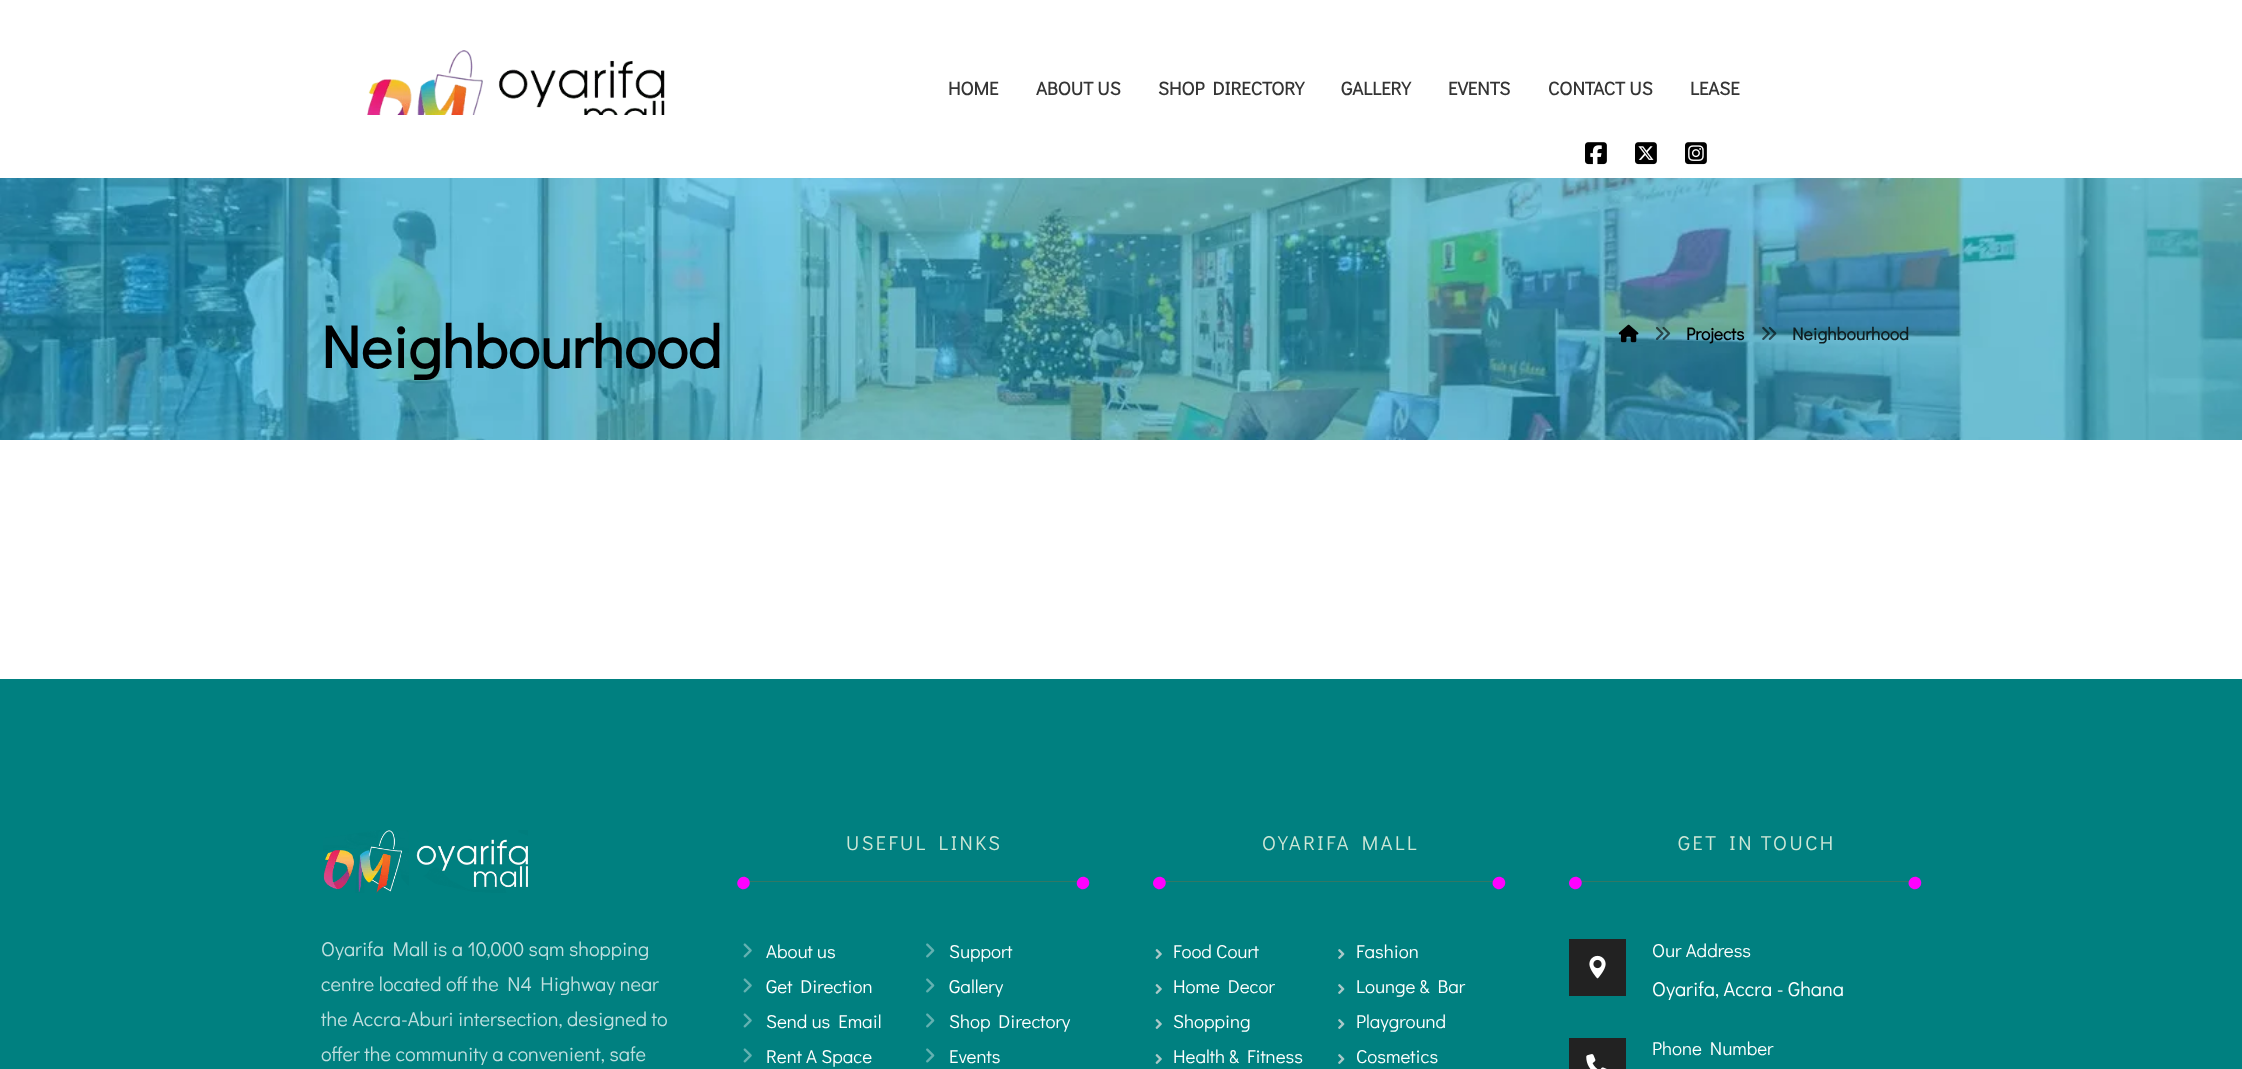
<svg xmlns="http://www.w3.org/2000/svg" width="2242" height="1069">
<rect width="100%" height="100%" fill="#fff"/>
<image x="367" y="50" width="298" height="65" href="media/1.png"/>
<text x="948" y="95" style="font-family:Didact Gothic;font-size:18.75px;font-weight:bold;fill:#353535">HOME</text>
<text x="1036" y="95" style="font-family:Didact Gothic;font-size:18.75px;font-weight:bold;fill:#353535">ABOUT US</text>
<text x="1158" y="95" style="font-family:Didact Gothic;font-size:18.75px;font-weight:bold;fill:#353535">SHOP DIRECTORY</text>
<text x="1341" y="95" style="font-family:Didact Gothic;font-size:18.75px;font-weight:bold;fill:#353535">GALLERY</text>
<text x="1448" y="95" style="font-family:Didact Gothic;font-size:18.75px;font-weight:bold;fill:#353535">EVENTS</text>
<text x="1548" y="95" style="font-family:Didact Gothic;font-size:18.75px;font-weight:bold;fill:#353535">CONTACT US</text>
<text x="1690" y="95" style="font-family:Didact Gothic;font-size:18.75px;font-weight:bold;fill:#353535">LEASE</text>
<image x="1585" y="142" width="22" height="23" href="media/2.png"/>
<image x="1635" y="142" width="22" height="23" href="media/3.png"/>
<image x="1685" y="142" width="22" height="23" href="media/4.png"/>
<image x="0" y="178" width="2242" height="262" href="media/5.png"/>
<text x="321" y="368" style="font-family:Didact Gothic;font-size:60px;font-weight:bold;fill:#000">Neighbourhood</text>
<image x="1618" y="324" width="21" height="19" href="media/6.png"/>
<image x="1656" y="326" width="15" height="14" href="media/7.png"/>
<text x="1686" y="340" style="font-family:Didact Gothic;font-size:17.5px;font-weight:bold;fill:#000">Projects</text>
<image x="1762" y="326" width="15" height="14" href="media/8.png"/>
<text x="1792" y="340" style="font-family:Didact Gothic;font-size:17.5px;font-weight:bold;fill:#0f1e22">Neighbourhood</text>
<rect y="679" width="2242" height="390" fill="#008080"/>
<image x="323" y="830" width="205" height="63" href="media/9.png"/>
<text x="321" y="956" style="font-family:Didact Gothic;font-size:20px;fill:#bfdfdf">Oyarifa Mall is a 10,000 sqm shopping</text>
<text x="321" y="991" style="font-family:Didact Gothic;font-size:20px;fill:#bfdfdf">centre located off the N4 Highway near</text>
<text x="321" y="1026" style="font-family:Didact Gothic;font-size:20px;fill:#bfdfdf">the Accra-Aburi intersection, designed to</text>
<text x="321" y="1061" style="font-family:Didact Gothic;font-size:20px;fill:#bfdfdf">offer the community a convenient, safe</text>
<rect x="749" y="881" width="329" height="1" fill="#327865"/>
<text x="846" y="850" style="font-family:Didact Gothic;font-size:20px;letter-spacing:2.5px;fill:#cee7d7">USEFUL LINKS</text>
<path d="M748 878.5c5.5 6-3 14.5-9 9c-5.5-6 3-14.5 9-9z" fill="#f0f"/>
<path d="M1087.5 878.5c5.5 6-3 14.5-9 9c-5.5-6 3-14.5 9-9z" fill="#f0f"/>
<image x="743" y="943" width="9" height="15" href="media/10.png"/>
<text x="766" y="958" style="font-family:Didact Gothic;font-size:18.75px;fill:#fff">About us</text>
<image x="926" y="943" width="9" height="15" href="media/11.png"/>
<text x="949" y="958" style="font-family:Didact Gothic;font-size:18.75px;fill:#fff">Support</text>
<image x="743" y="978" width="9" height="15" href="media/10.png"/>
<text x="766" y="993" style="font-family:Didact Gothic;font-size:18.75px;fill:#fff">Get Direction</text>
<image x="926" y="978" width="9" height="15" href="media/11.png"/>
<text x="949" y="993" style="font-family:Didact Gothic;font-size:18.75px;fill:#fff">Gallery</text>
<image x="743" y="1013" width="9" height="15" href="media/10.png"/>
<text x="766" y="1028" style="font-family:Didact Gothic;font-size:18.75px;fill:#fff">Send us Email</text>
<image x="926" y="1013" width="9" height="15" href="media/11.png"/>
<text x="949" y="1028" style="font-family:Didact Gothic;font-size:18.75px;fill:#fff">Shop Directory</text>
<image x="743" y="1048" width="9" height="15" href="media/10.png"/>
<text x="766" y="1063" style="font-family:Didact Gothic;font-size:18.75px;fill:#fff">Rent A Space</text>
<image x="926" y="1048" width="9" height="15" href="media/11.png"/>
<text x="949" y="1063" style="font-family:Didact Gothic;font-size:18.75px;fill:#fff">Events</text>
<rect x="1165" y="881" width="328" height="1" fill="#327865"/>
<text x="1262" y="850" style="font-family:Didact Gothic;font-size:20px;letter-spacing:2.5px;fill:#cee7d7">OYARIFA MALL</text>
<path d="M1164 878.5c5.5 6-3 14.5-9 9c-6-6 3-14.5 9-9z" fill="#f0f"/>
<path d="M1503.5 878.5c5.5 6-3 14.5-9 9c-6-6 3-14.5 9-9z" fill="#f0f"/>
<image x="1155" y="949" width="7" height="10" href="media/12.png"/>
<text x="1173" y="958" style="font-family:Didact Gothic;font-size:18.75px;fill:#fff">Food Court</text>
<image x="1338" y="949" width="7" height="10" href="media/13.png"/>
<text x="1356" y="958" style="font-family:Didact Gothic;font-size:18.75px;fill:#fff">Fashion</text>
<image x="1155" y="984" width="7" height="10" href="media/12.png"/>
<text x="1173" y="993" style="font-family:Didact Gothic;font-size:18.75px;fill:#fff">Home Decor</text>
<image x="1338" y="984" width="7" height="10" href="media/13.png"/>
<text x="1356" y="993" style="font-family:Didact Gothic;font-size:18.75px;fill:#fff">Lounge &amp; Bar</text>
<image x="1155" y="1019" width="7" height="10" href="media/12.png"/>
<text x="1173" y="1028" style="font-family:Didact Gothic;font-size:18.75px;fill:#fff">Shopping</text>
<image x="1338" y="1019" width="7" height="10" href="media/13.png"/>
<text x="1356" y="1028" style="font-family:Didact Gothic;font-size:18.75px;fill:#fff">Playground</text>
<image x="1155" y="1054" width="7" height="10" href="media/12.png"/>
<text x="1173" y="1063" style="font-family:Didact Gothic;font-size:18.75px;fill:#fff">Health &amp; Fitness</text>
<image x="1338" y="1054" width="7" height="10" href="media/13.png"/>
<text x="1356" y="1063" style="font-family:Didact Gothic;font-size:18.75px;fill:#fff">Cosmetics</text>
<rect x="1569" y="881" width="340" height="1" fill="#327865"/>
<text x="1678" y="850" style="font-family:Didact Gothic;font-size:20px;letter-spacing:2.5px;fill:#cee7d7">GET IN TOUCH</text>
<path d="M1580 878.5c5.5 6-3 14.5-9 9c-6-6 3-14.5 9-9z" fill="#f0f"/>
<path d="M1919.5 878.5c5.5 6-3 14.5-9 9c-6-6 3-14.5 9-9z" fill="#f0f"/>
<rect x="1569" y="939" width="57" height="57" fill="#222"/>
<image x="1589" y="955" width="17" height="24" href="media/14.png"/>
<text x="1652" y="957" style="font-family:Didact Gothic;font-size:18.75px;fill:#fff">Our Address</text>
<text x="1652" y="996" style="font-family:Didact Gothic;font-size:20px;fill:#fff">Oyarifa, Accra - Ghana</text>
<rect x="1569" y="1038" width="57" height="31" fill="#222"/>
<image x="1586" y="1054" width="21" height="15" href="media/15.png"/>
<text x="1652" y="1055" style="font-family:Didact Gothic;font-size:18.75px;fill:#fff">Phone Number</text>
</svg>
